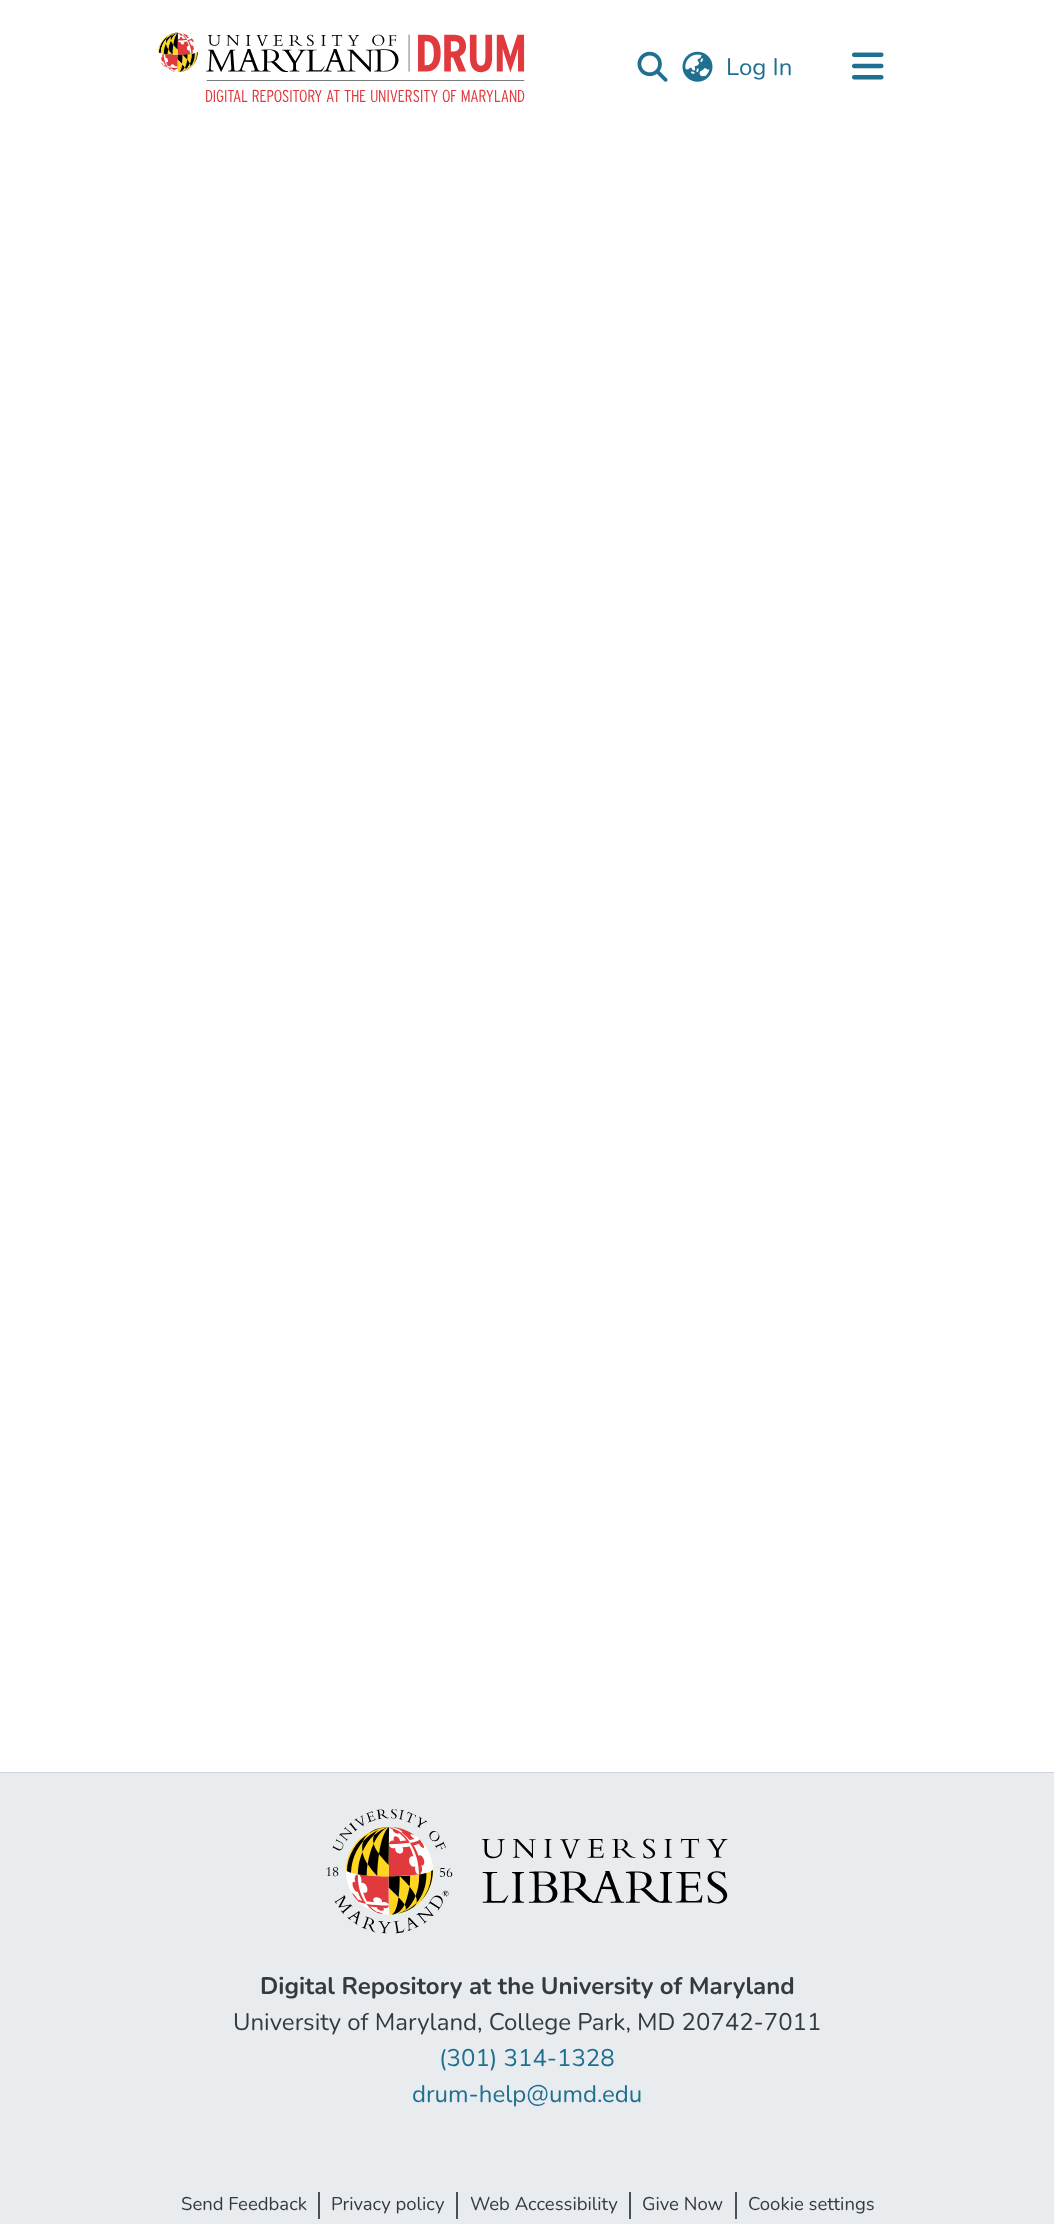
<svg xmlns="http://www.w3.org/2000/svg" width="1054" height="2224">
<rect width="100%" height="100%" fill="#fff"/>
<image x="158" y="32" width="367" height="70" href="media/1.png"/>
<image x="637" y="51" width="31" height="31" href="media/2.png"/>
<image x="682" y="51" width="31" height="31" href="media/3.png"/>
<text x="726" y="75" style="font-family:Nunito;font-size:24px;fill:#1e6f90">Log In</text>
<image x="852" y="52" width="32" height="28" href="media/4.png"/>
<rect y="1773" width="1054" height="451" fill="#e9ecef"/>
<rect y="1772" width="1054" height="1" fill="#ced4da"/>
<image x="326" y="1809" width="402" height="125" href="media/5.png"/>
<text x="260" y="1994" style="font-family:Nunito;font-size:24px;font-weight:bold;fill:#343a40">Digital Repository at the University of Maryland</text>
<text x="233" y="2030" style="font-family:Nunito;font-size:24px;fill:#343a40">University of Maryland, College Park, MD 20742-7011</text>
<text x="439" y="2066" style="font-family:Nunito;font-size:24px;fill:#1e6f90">(301) 314-1328</text>
<text x="412" y="2102" style="font-family:Nunito;font-size:24px;fill:#1e6f90">drum-help@umd.edu</text>
<text x="181" y="2210" style="font-family:Nunito;font-size:18.5px;fill:#343a40">Send Feedback</text>
<rect x="318" y="2192" width="2" height="27" fill="#495057"/>
<text x="331" y="2210" style="font-family:Nunito;font-size:18.5px;fill:#343a40">Privacy policy</text>
<rect x="456" y="2192" width="2" height="27" fill="#495057"/>
<text x="470" y="2210" style="font-family:Nunito;font-size:18.5px;fill:#343a40">Web Accessibility</text>
<rect x="629" y="2192" width="2" height="27" fill="#495057"/>
<text x="642" y="2210" style="font-family:Nunito;font-size:18.5px;fill:#343a40">Give Now</text>
<rect x="735" y="2192" width="2" height="27" fill="#495057"/>
<text x="748" y="2210" style="font-family:Nunito;font-size:18.5px;fill:#343a40">Cookie settings</text>
</svg>
